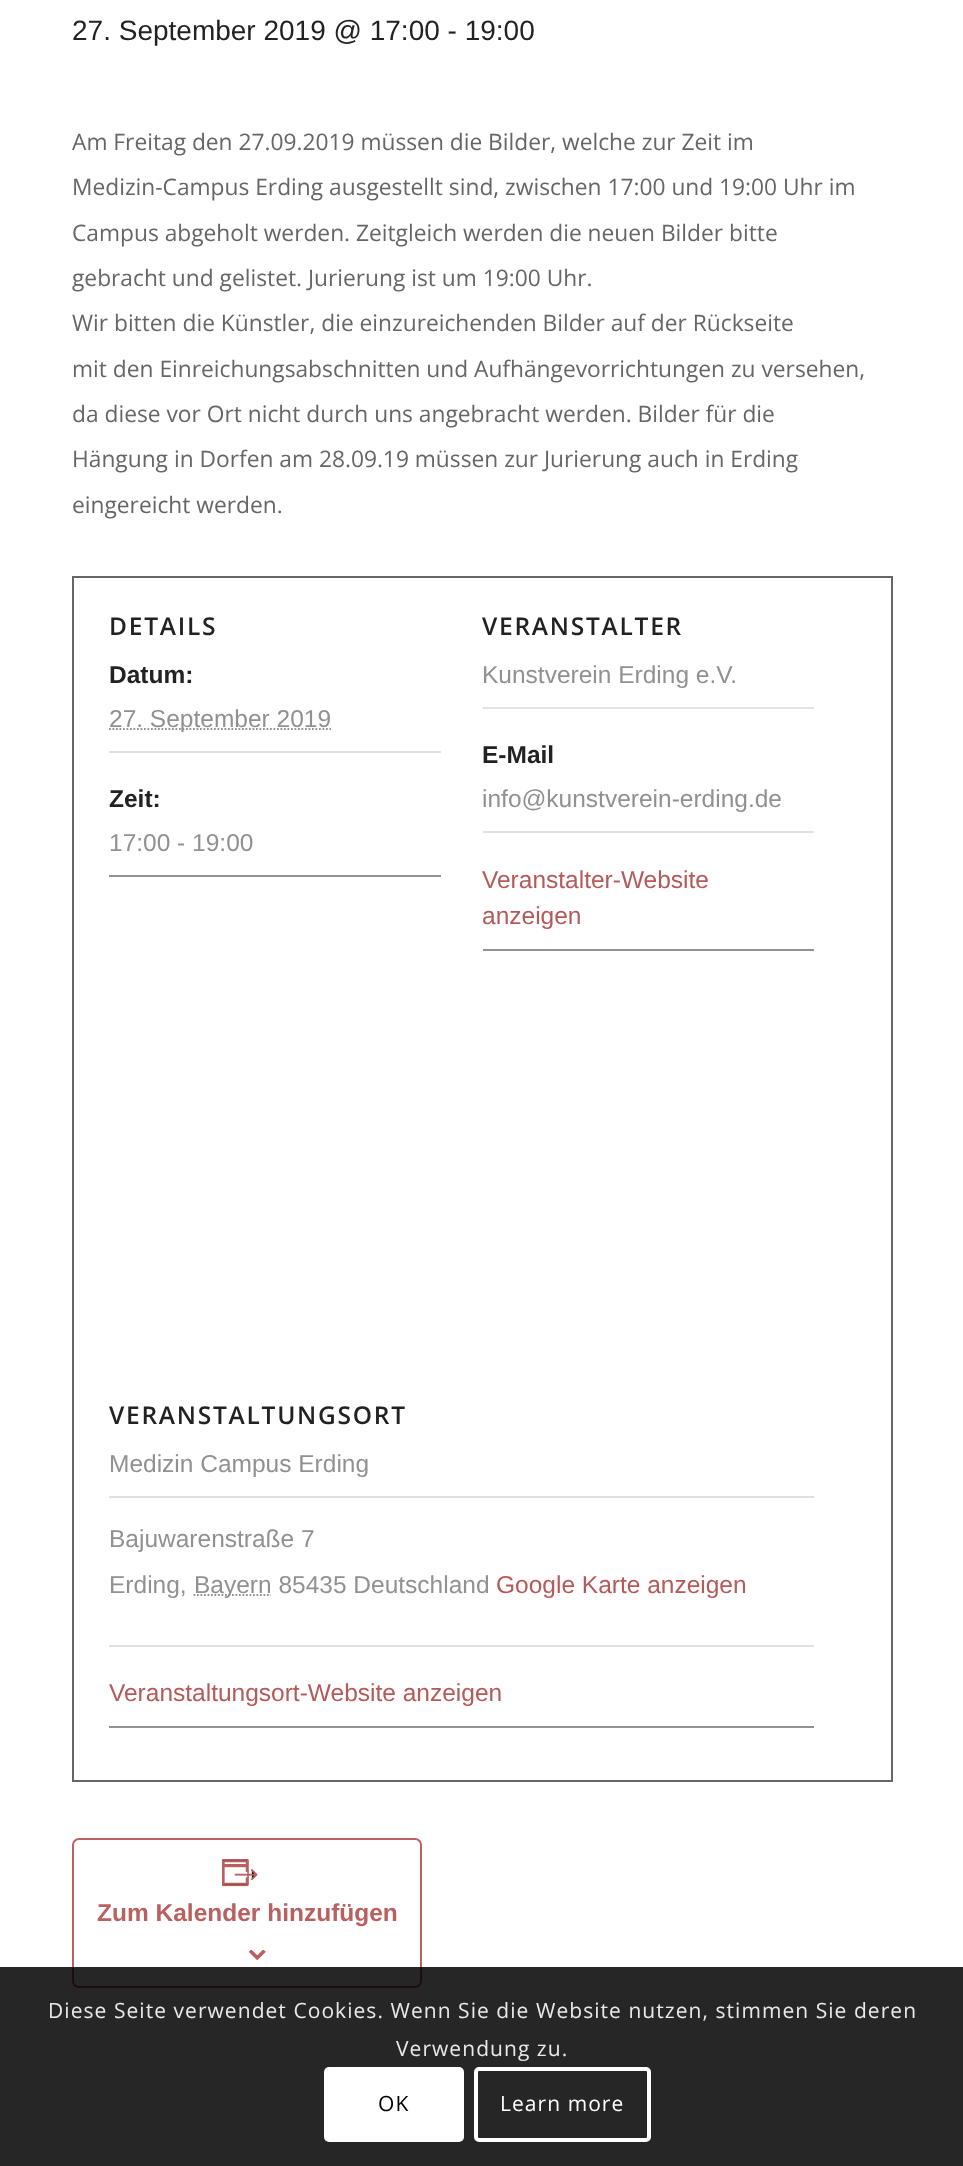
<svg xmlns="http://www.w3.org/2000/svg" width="963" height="2166">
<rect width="100%" height="100%" fill="#fff"/>
<text x="72" y="40" style="font-family:Liberation Sans;font-size:28px;fill:#222">27. September 2019 @ 17:00 - 19:00</text>
<text x="72" y="150" style="font-family:Open Sans;font-size:22.75px;fill:#666">Am Freitag den 27.09.2019 müssen die Bilder, welche zur Zeit im</text>
<text x="72" y="195" style="font-family:Open Sans;font-size:22.75px;fill:#666">Medizin-Campus Erding ausgestellt sind, zwischen 17:00 und 19:00 Uhr im</text>
<text x="72" y="241" style="font-family:Open Sans;font-size:22.75px;fill:#666">Campus abgeholt werden. Zeitgleich werden die neuen Bilder bitte</text>
<text x="72" y="286" style="font-family:Open Sans;font-size:22.75px;fill:#666">gebracht und gelistet. Jurierung ist um 19:00 Uhr.</text>
<text x="72" y="331" style="font-family:Open Sans;font-size:22.75px;fill:#666">Wir bitten die Künstler, die einzureichenden Bilder auf der Rückseite</text>
<text x="72" y="377" style="font-family:Open Sans;font-size:22.75px;fill:#666">mit den Einreichungsabschnitten und Aufhängevorrichtungen zu versehen,</text>
<text x="72" y="422" style="font-family:Open Sans;font-size:22.75px;fill:#666">da diese vor Ort nicht durch uns angebracht werden. Bilder für die</text>
<text x="72" y="467" style="font-family:Open Sans;font-size:22.75px;fill:#666">Hängung in Dorfen am 28.09.19 müssen zur Jurierung auch in Erding</text>
<text x="72" y="513" style="font-family:Open Sans;font-size:22.75px;fill:#666">eingereicht werden.</text>
<rect x="73" y="577" width="819" height="1204" fill="none" stroke="#666" stroke-width="2"/>
<text x="109" y="635" style="font-family:Open Sans;font-size:24.5px;font-weight:600;letter-spacing:1.75px;fill:#222">DETAILS</text>
<text x="109" y="683" style="font-family:Liberation Sans;font-size:24.5px;font-weight:bold;fill:#222">Datum:</text>
<rect x="109" y="751" width="332" height="2" fill="#e1e1e1"/>
<path d="M109 729h222" fill="none" stroke="#919191" stroke-width="1.8" stroke-dasharray="1.75 1.75"/>
<text x="109" y="727" style="font-family:Liberation Sans;font-size:24.5px;fill:#919191">27. September 2019</text>
<text x="109" y="807" style="font-family:Liberation Sans;font-size:24.5px;font-weight:bold;fill:#222">Zeit:</text>
<rect x="109" y="875" width="332" height="2" fill="#919191"/>
<text x="109" y="851" style="font-family:Liberation Sans;font-size:24.5px;fill:#919191">17:00 - 19:00</text>
<text x="482" y="635" style="font-family:Open Sans;font-size:24.5px;font-weight:600;letter-spacing:1.75px;fill:#222">VERANSTALTER</text>
<rect x="483" y="707" width="331" height="2" fill="#e1e1e1"/>
<text x="482" y="683" style="font-family:Liberation Sans;font-size:24.5px;fill:#919191">Kunstverein Erding e.V.</text>
<text x="482" y="763" style="font-family:Liberation Sans;font-size:24.5px;font-weight:bold;fill:#222">E-Mail</text>
<rect x="483" y="831" width="331" height="2" fill="#e1e1e1"/>
<text x="482" y="807" style="font-family:Liberation Sans;font-size:24.5px;fill:#919191">info@kunstverein-erding.de</text>
<rect x="483" y="949" width="331" height="2" fill="#919191"/>
<text x="482" y="888" style="font-family:Liberation Sans;font-size:24.5px;fill:#b55959">Veranstalter-Website</text>
<text x="482" y="924" style="font-family:Liberation Sans;font-size:24.5px;fill:#b55959">anzeigen</text>
<text x="109" y="1424" style="font-family:Open Sans;font-size:24.5px;font-weight:600;letter-spacing:1.75px;fill:#222">VERANSTALTUNGSORT</text>
<rect x="109" y="1496" width="705" height="2" fill="#e1e1e1"/>
<text x="109" y="1472" style="font-family:Liberation Sans;font-size:24.5px;fill:#919191">Medizin Campus Erding</text>
<rect x="109" y="1645" width="705" height="2" fill="#e1e1e1"/>
<text x="109" y="1547" style="font-family:Liberation Sans;font-size:24.5px;fill:#919191">Bajuwarenstraße 7</text>
<text x="109" y="1593" style="font-family:Liberation Sans;font-size:24.5px;fill:#919191">Erding,</text>
<path d="M193.5 1595h77.5" fill="none" stroke="#919191" stroke-width="1.8" stroke-dasharray="1.75 1.75"/>
<text x="194" y="1593" style="font-family:Liberation Sans;font-size:24.5px;fill:#919191">Bayern 85435 Deutschland</text>
<text x="496" y="1593" style="font-family:Liberation Sans;font-size:24.5px;fill:#b55959">Google Karte anzeigen</text>
<rect x="109" y="1726" width="705" height="2" fill="#919191"/>
<text x="109" y="1701" style="font-family:Liberation Sans;font-size:24.5px;fill:#b55959">Veranstaltungsort-Website anzeigen</text>
<rect x="73" y="1839" width="348" height="148" rx="6" fill="none" stroke="#b96060" stroke-width="2"/>
<image x="222" y="1859" width="36" height="28" href="media/1.png"/>
<text x="97" y="1921" style="font-family:Liberation Sans;font-size:24.5px;font-weight:bold;fill:#b96060">Zum Kalender hinzufügen</text>
<image x="249" y="1950" width="17" height="10" href="media/2.png"/>
<rect y="1967" width="963" height="199" fill="#000000d9"/>
<text x="48" y="2018" style="font-family:Open Sans;font-size:21px;letter-spacing:1.05px;fill:#e9e9e9">Diese Seite verwendet Cookies. Wenn Sie die Website nutzen, stimmen Sie deren</text>
<text x="396" y="2056" style="font-family:Open Sans;font-size:21px;letter-spacing:1.05px;fill:#e9e9e9">Verwendung zu.</text>
<rect x="324" y="2067" width="140" height="75" rx="5" fill="#fff"/>
<text x="378" y="2111" style="font-family:Open Sans;font-size:21px;letter-spacing:1.05px;fill:#000">OK</text>
<rect x="476" y="2069" width="173" height="71" rx="3" fill="none" stroke="#fff" stroke-width="4"/>
<text x="500" y="2111" style="font-family:Open Sans;font-size:21px;letter-spacing:1.05px;fill:#fff">Learn more</text>
</svg>
